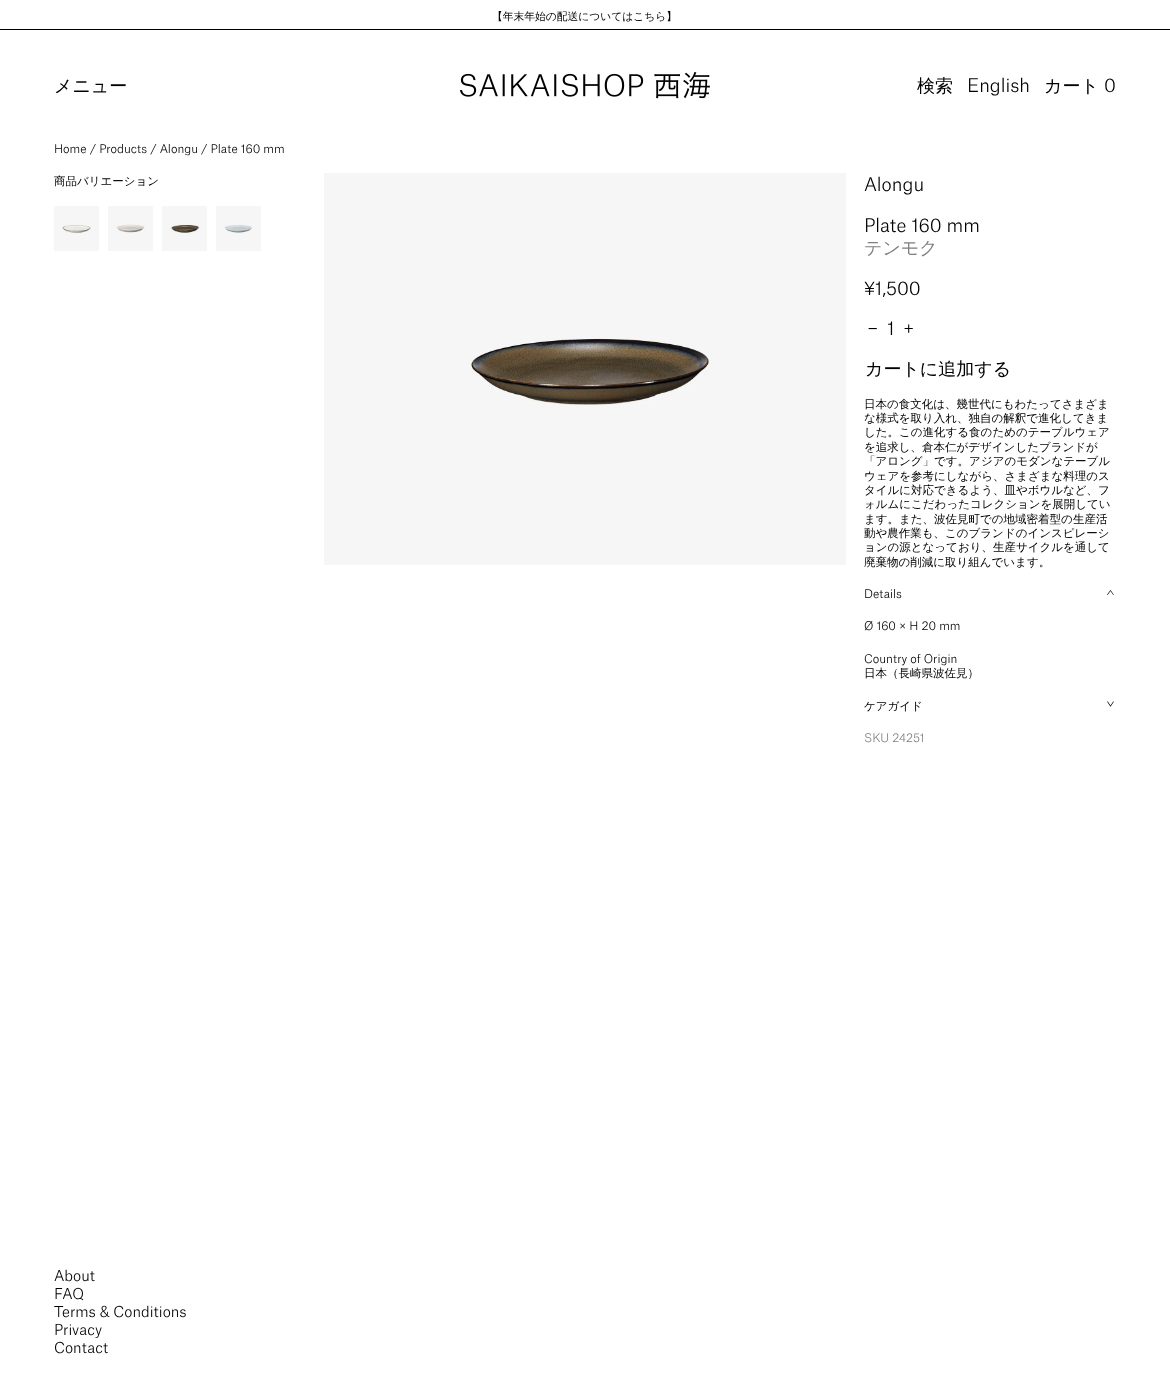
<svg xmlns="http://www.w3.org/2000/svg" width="1170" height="1392">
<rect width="100%" height="100%" fill="#fff"/>
<rect y="29" width="1170" height="1" fill="#000"/>
<text x="492" y="20" style="font-family:WenQuanYi Zen Hei;font-size:10.75px;font-weight:500;fill:#000">【年末年始の配送についてはこちら】</text>
<text x="54" y="92" style="font-family:WenQuanYi Zen Hei;font-size:18px;font-weight:500;fill:#000">メニュー</text>
<image x="460" y="72" width="250" height="27" href="media/1.png"/>
<text x="917" y="92" style="font-family:WenQuanYi Zen Hei;font-size:18px;font-weight:500;fill:#000">検索</text>
<text x="967" y="92" style="font-family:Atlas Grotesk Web;font-size:18px;font-weight:300;fill:#000">English</text>
<text x="1044" y="92" style="font-family:WenQuanYi Zen Hei;font-size:18px;font-weight:500;fill:#000">カート</text>
<text x="1104" y="92" style="font-family:Atlas Grotesk Web;font-size:18px;font-weight:300;fill:#000">0</text>
<text x="54" y="153" style="font-family:Atlas Grotesk Web;font-size:11.5px;font-weight:300;fill:#000">Home / Products / Alongu / Plate 160 mm</text>
<text x="54" y="185" style="font-family:WenQuanYi Zen Hei;font-size:11.5px;font-weight:500;fill:#000">商品バリエーション</text>
<image x="54" y="206" width="45" height="45" href="media/2.png"/>
<image x="108" y="206" width="45" height="45" href="media/3.png"/>
<image x="162" y="206" width="45" height="45" href="media/4.png"/>
<image x="216" y="206" width="45" height="45" href="media/5.png"/>
<rect x="324" y="173" width="522" height="392" fill="#f6f6f6"/>
<image x="471" y="338" width="239" height="67" href="media/6.png"/>
<text x="864" y="191" style="font-family:Atlas Grotesk Web;font-size:18px;font-weight:300;fill:#000">Alongu</text>
<text x="864" y="232" style="font-family:Atlas Grotesk Web;font-size:18px;font-weight:300;fill:#000">Plate 160 mm</text>
<text x="864" y="254" style="font-family:WenQuanYi Zen Hei;font-size:18px;font-weight:500;fill:#808080">テンモク</text>
<text x="864" y="295" style="font-family:Atlas Grotesk Web;font-size:18px;font-weight:300;fill:#000">¥1,500</text>
<text x="867" y="335" style="font-family:Atlas Grotesk Web;font-size:18px;font-weight:300;fill:#000">−</text>
<text x="887" y="335" style="font-family:Atlas Grotesk Web;font-size:18px;font-weight:300;fill:#000">1</text>
<text x="903" y="335" style="font-family:Atlas Grotesk Web;font-size:18px;font-weight:300;fill:#000">+</text>
<text x="865" y="375" style="font-family:WenQuanYi Zen Hei;font-size:18px;font-weight:500;fill:#000">カートに追加する</text>
<text x="864" y="408" style="font-family:WenQuanYi Zen Hei;font-size:11.5px;font-weight:500;fill:#000">日本の食文化は、幾世代にもわたってさまざま</text>
<text x="864" y="422" style="font-family:WenQuanYi Zen Hei;font-size:11.5px;font-weight:500;fill:#000">な様式を取り入れ、独自の解釈で進化してきま</text>
<text x="864" y="436" style="font-family:WenQuanYi Zen Hei;font-size:11.5px;font-weight:500;fill:#000">した。この進化する食のためのテーブルウェア</text>
<text x="864" y="451" style="font-family:WenQuanYi Zen Hei;font-size:11.5px;font-weight:500;fill:#000">を追求し、倉本仁がデザインしたブランドが</text>
<text x="864" y="465" style="font-family:WenQuanYi Zen Hei;font-size:11.5px;font-weight:500;fill:#000">「アロング」です。アジアのモダンなテーブル</text>
<text x="864" y="480" style="font-family:WenQuanYi Zen Hei;font-size:11.5px;font-weight:500;fill:#000">ウェアを参考にしながら、さまざまな料理のス</text>
<text x="864" y="494" style="font-family:WenQuanYi Zen Hei;font-size:11.5px;font-weight:500;fill:#000">タイルに対応できるよう、皿やボウルなど、フ</text>
<text x="864" y="508" style="font-family:WenQuanYi Zen Hei;font-size:11.5px;font-weight:500;fill:#000">ォルムにこだわったコレクションを展開してい</text>
<text x="864" y="523" style="font-family:WenQuanYi Zen Hei;font-size:11.5px;font-weight:500;fill:#000">ます。また、波佐見町での地域密着型の生産活</text>
<text x="864" y="537" style="font-family:WenQuanYi Zen Hei;font-size:11.5px;font-weight:500;fill:#000">動や農作業も、このブランドのインスピレーシ</text>
<text x="864" y="551" style="font-family:WenQuanYi Zen Hei;font-size:11.5px;font-weight:500;fill:#000">ョンの源となっており、生産サイクルを通して</text>
<text x="864" y="566" style="font-family:WenQuanYi Zen Hei;font-size:11.5px;font-weight:500;fill:#000">廃棄物の削減に取り組んでいます。</text>
<text x="864" y="598" style="font-family:Atlas Grotesk Web;font-size:11.5px;font-weight:300;fill:#000">Details</text>
<image x="1107" y="590" width="7" height="5" href="media/7.png"/>
<text x="864" y="630" style="font-family:Atlas Grotesk Web;font-size:11.5px;font-weight:300;fill:#000">Ø 160 × H 20 mm</text>
<text x="864" y="663" style="font-family:Atlas Grotesk Web;font-size:11.5px;font-weight:300;fill:#000">Country of Origin</text>
<text x="864" y="677" style="font-family:WenQuanYi Zen Hei;font-size:11.5px;font-weight:500;fill:#000">日本（長崎県波佐見）</text>
<text x="864" y="710" style="font-family:WenQuanYi Zen Hei;font-size:11.5px;font-weight:500;fill:#000">ケアガイド</text>
<image x="1107" y="701" width="7" height="6" href="media/8.png"/>
<text x="864" y="742" style="font-family:Atlas Grotesk Web;font-size:11.5px;font-weight:300;fill:#808080">SKU 24251</text>
<text x="54" y="1281" style="font-family:Atlas Grotesk Web;font-size:14.4px;font-weight:300;fill:#000">About</text>
<text x="54" y="1299" style="font-family:Atlas Grotesk Web;font-size:14.4px;font-weight:300;fill:#000">FAQ</text>
<text x="54" y="1317" style="font-family:Atlas Grotesk Web;font-size:14.4px;font-weight:300;fill:#000">Terms &amp; Conditions</text>
<text x="54" y="1335" style="font-family:Atlas Grotesk Web;font-size:14.4px;font-weight:300;fill:#000">Privacy</text>
<text x="54" y="1353" style="font-family:Atlas Grotesk Web;font-size:14.4px;font-weight:300;fill:#000">Contact</text>
</svg>
